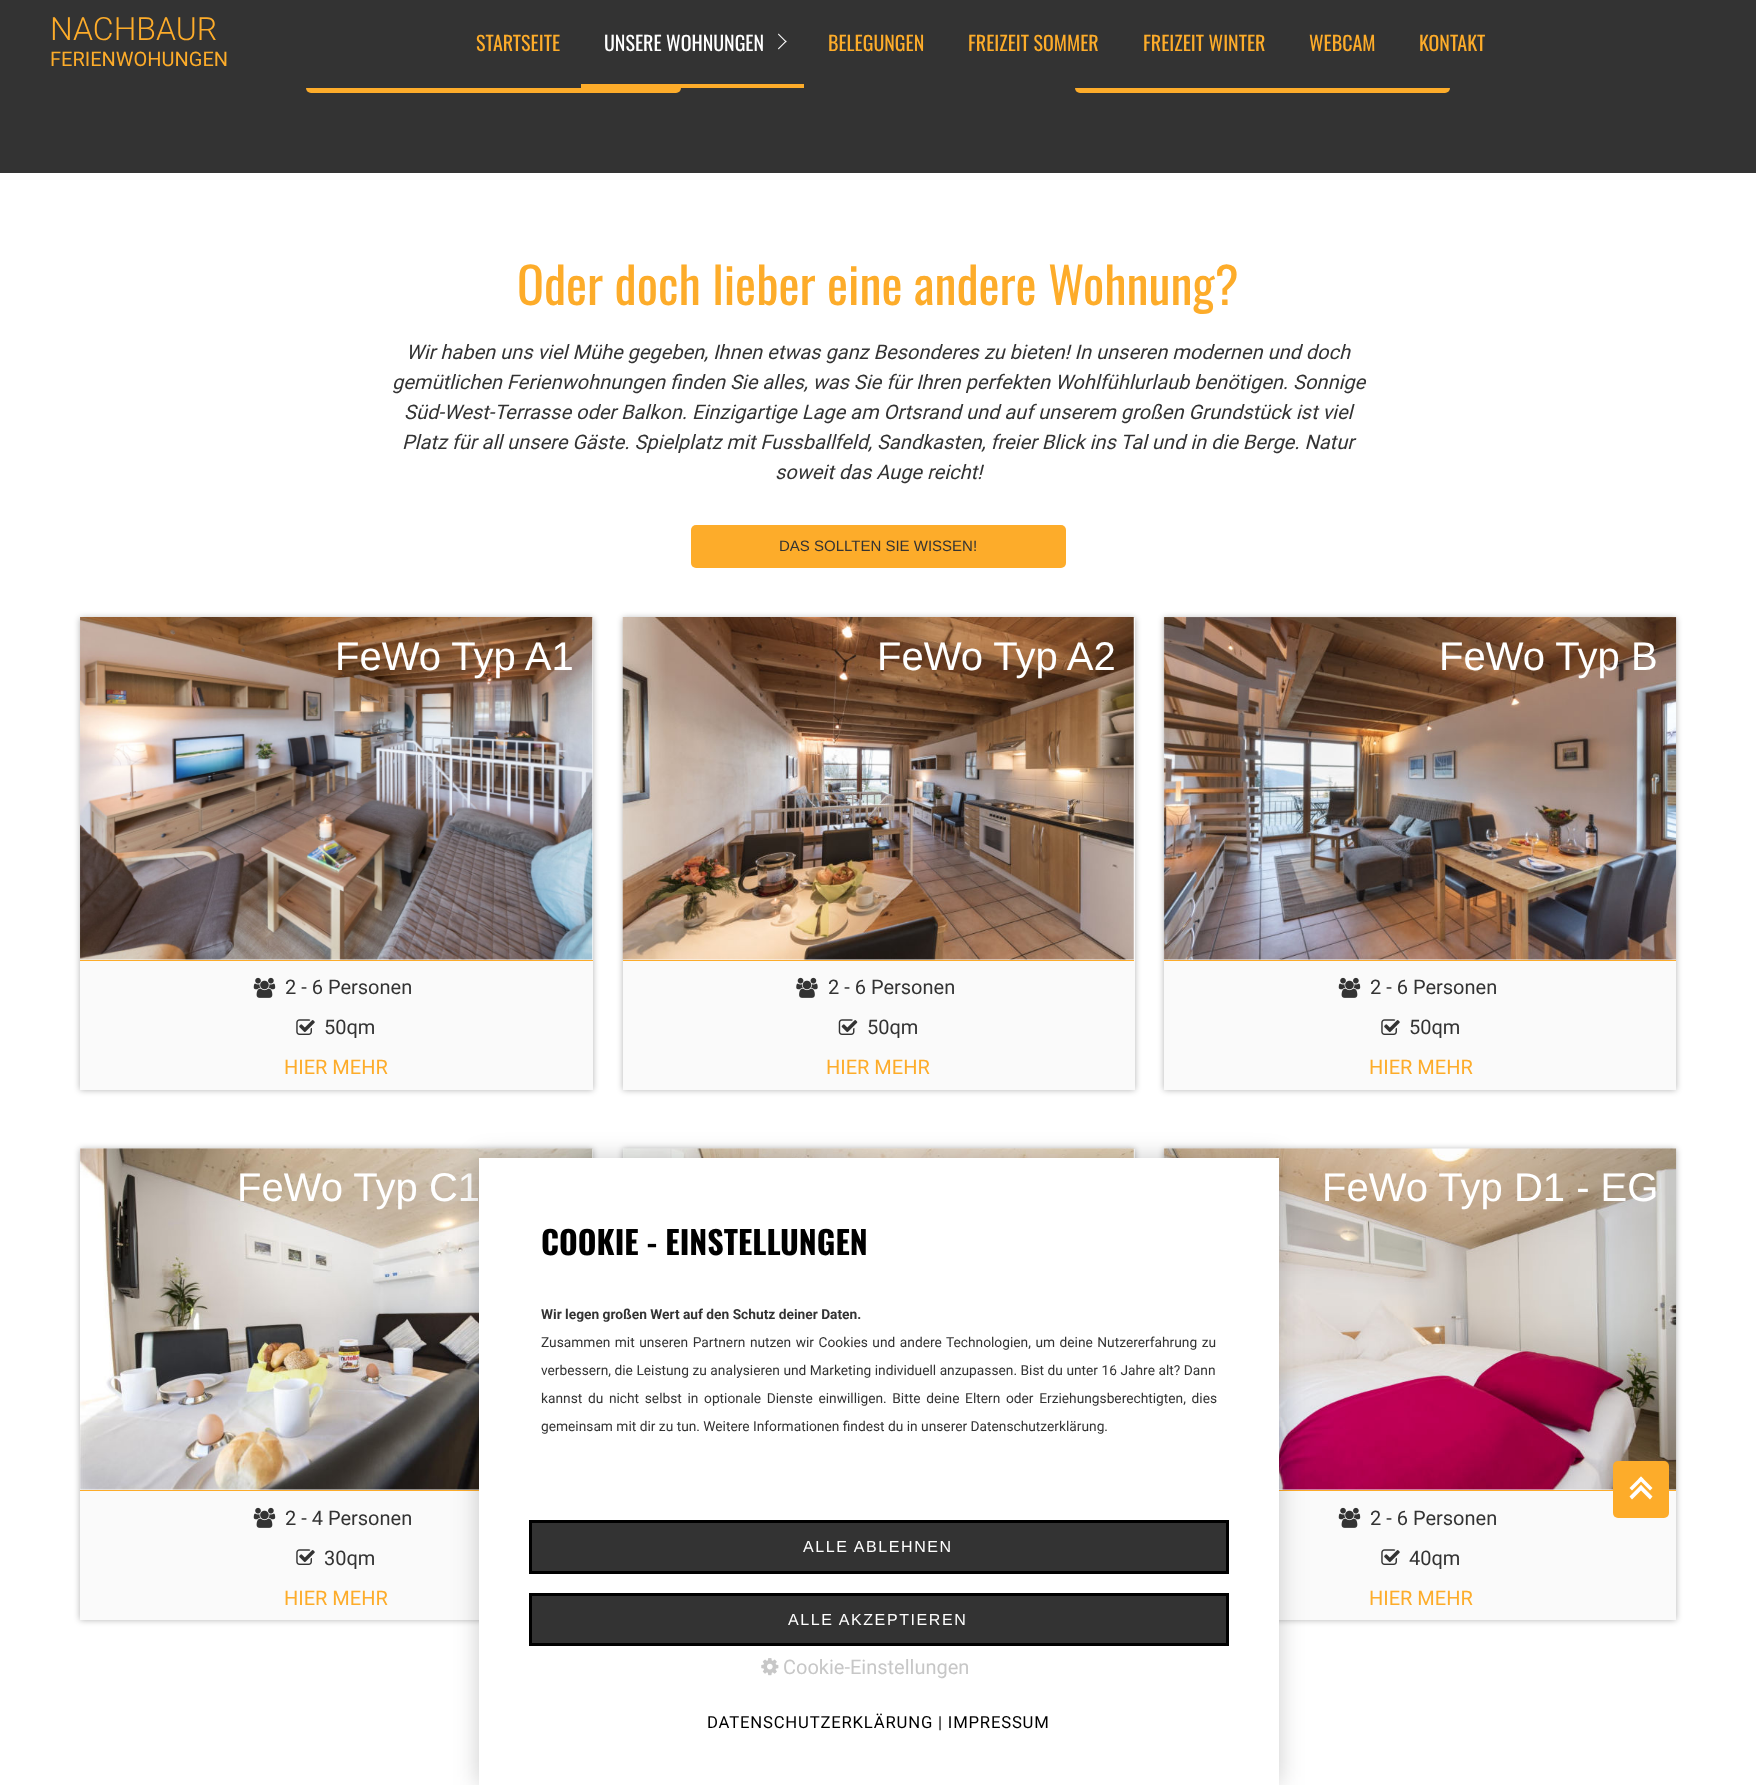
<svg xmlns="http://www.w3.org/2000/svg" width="1756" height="1785">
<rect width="100%" height="100%" fill="#fff"/>
<rect y="88" width="1756" height="85" fill="#333"/>
<rect x="306" y="50" width="375" height="43" rx="5" fill="#fdac2a"/>
<rect x="1075" y="50" width="375" height="43" rx="5" fill="#fdac2a"/>
<rect width="1756" height="88" fill="#333"/>
<text x="50" y="40" style="font-family:Roboto;font-size:32px;font-weight:300;fill:#fdac2a">NACHBAUR</text>
<text x="50" y="66" style="font-family:Roboto;font-size:20px;fill:#fdac2a">FERIENWOHUNGEN</text>
<text x="476" y="51" style="font-family:Oswald;font-size:20px;fill:#fdac2a">STARTSEITE</text>
<rect x="581" y="84" width="223" height="4" fill="#fdac2a"/>
<text x="604" y="51" style="font-family:Oswald;font-size:20px;fill:#fff">UNSERE WOHNUNGEN</text>
<path d="M778.5 33.5l8 8l-.5 1l-8-8z" fill="#fff"/>
<path d="M786 40.5l.5 1l-8 8l-.5-1z" fill="#fff"/>
<text x="828" y="51" style="font-family:Oswald;font-size:20px;fill:#fdac2a">BELEGUNGEN</text>
<text x="968" y="51" style="font-family:Oswald;font-size:20px;fill:#fdac2a">FREIZEIT SOMMER</text>
<text x="1143" y="51" style="font-family:Oswald;font-size:20px;fill:#fdac2a">FREIZEIT WINTER</text>
<text x="1309" y="51" style="font-family:Oswald;font-size:20px;fill:#fdac2a">WEBCAM</text>
<text x="1419" y="51" style="font-family:Oswald;font-size:20px;fill:#fdac2a">KONTAKT</text>
<text x="517" y="305" style="font-family:Oswald;font-size:50px;fill:#fdac2a">Oder doch lieber eine andere Wohnung?</text>
<text x="406" y="359" style="font-family:Roboto;font-size:20px;font-style:italic;fill:#333">Wir haben uns viel Mühe gegeben, Ihnen etwas ganz Besonderes zu bieten! In unseren modernen und doch</text>
<text x="392" y="389" style="font-family:Roboto;font-size:20px;font-style:italic;fill:#333">gemütlichen Ferienwohnungen finden Sie alles, was Sie für Ihren perfekten Wohlfühlurlaub benötigen. Sonnige</text>
<text x="404" y="419" style="font-family:Roboto;font-size:20px;font-style:italic;fill:#333">Süd-West-Terrasse oder Balkon. Einzigartige Lage am Ortsrand und auf unserem großen Grundstück ist viel</text>
<text x="402" y="449" style="font-family:Roboto;font-size:20px;font-style:italic;fill:#333">Platz für all unsere Gäste. Spielplatz mit Fussballfeld, Sandkasten, freier Blick ins Tal und in die Berge. Natur</text>
<text x="775" y="479" style="font-family:Roboto;font-size:20px;font-style:italic;fill:#333">soweit das Auge reicht!</text>
<rect x="691" y="525" width="375" height="43" rx="5" fill="#fdac2a"/>
<text x="779" y="551" style="font-family:Liberation Sans;font-size:15px;fill:#333">DAS SOLLTEN SIE WISSEN!</text>
<rect x="80" y="618" width="513" height="472" fill="#0000004d" filter="blur(3px)"/>
<rect x="80" y="618" width="513" height="472" fill="#fafafa"/>
<image x="80" y="617" width="513" height="343" href="media/1.png"/>
<text x="335" y="670" style="font-family:Liberation Sans;font-size:40px;fill:#fff">FeWo Typ A1</text>
<image x="253" y="977" width="23" height="21" href="media/2.png"/>
<text x="285" y="994" style="font-family:Roboto;font-size:20px;fill:#333">2 - 6 Personen</text>
<image x="296" y="1019" width="19" height="16" href="media/3.png"/>
<text x="324" y="1034" style="font-family:Roboto;font-size:20px;fill:#333">50qm</text>
<text x="284" y="1074" style="font-family:Roboto;font-size:20px;fill:#fdac2a">HIER MEHR</text>
<rect x="80" y="960" width="513" height="1" fill="#fdac2a"/>
<rect x="623" y="618" width="512" height="472" fill="#0000004d" filter="blur(3px)"/>
<rect x="623" y="618" width="512" height="472" fill="#fafafa"/>
<image x="622" y="617" width="512" height="343" href="media/4.png"/>
<text x="877" y="670" style="font-family:Liberation Sans;font-size:40px;fill:#fff">FeWo Typ A2</text>
<image x="796" y="977" width="22" height="21" href="media/5.png"/>
<text x="828" y="994" style="font-family:Roboto;font-size:20px;fill:#333">2 - 6 Personen</text>
<image x="838" y="1019" width="20" height="16" href="media/6.png"/>
<text x="867" y="1034" style="font-family:Roboto;font-size:20px;fill:#333">50qm</text>
<text x="826" y="1074" style="font-family:Roboto;font-size:20px;fill:#fdac2a">HIER MEHR</text>
<rect x="623" y="960" width="511" height="1" fill="#fdac2a"/>
<rect x="1164" y="618" width="512" height="472" fill="#0000004d" filter="blur(3px)"/>
<rect x="1164" y="959" width="512" height="131" fill="#fafafa"/>
<image x="1163" y="617" width="514" height="343" href="media/7.png"/>
<text x="1439" y="670" style="font-family:Liberation Sans;font-size:40px;fill:#fff">FeWo Typ B</text>
<image x="1338" y="977" width="23" height="21" href="media/2.png"/>
<text x="1370" y="994" style="font-family:Roboto;font-size:20px;fill:#333">2 - 6 Personen</text>
<image x="1381" y="1019" width="19" height="16" href="media/3.png"/>
<text x="1409" y="1034" style="font-family:Roboto;font-size:20px;fill:#333">50qm</text>
<text x="1369" y="1074" style="font-family:Roboto;font-size:20px;fill:#fdac2a">HIER MEHR</text>
<rect x="1164" y="960" width="512" height="1" fill="#fdac2a"/>
<rect x="80" y="1149" width="513" height="471" fill="#0000004d" filter="blur(3px)"/>
<rect x="80" y="1149" width="513" height="471" fill="#fafafa"/>
<image x="80" y="1148" width="513" height="342" href="media/8.png"/>
<text x="237" y="1201" style="font-family:Liberation Sans;font-size:40px;fill:#fff">FeWo Typ C1</text>
<image x="253" y="1507" width="23" height="21" href="media/2.png"/>
<text x="285" y="1525" style="font-family:Roboto;font-size:20px;fill:#333">2 - 4 Personen</text>
<image x="296" y="1549" width="19" height="16" href="media/3.png"/>
<text x="324" y="1565" style="font-family:Roboto;font-size:20px;fill:#333">30qm</text>
<text x="284" y="1605" style="font-family:Roboto;font-size:20px;fill:#fdac2a">HIER MEHR</text>
<rect x="80" y="1490" width="399" height="1" fill="#fdac2a"/>
<rect x="623" y="1149" width="512" height="471" fill="#0000004d" filter="blur(3px)"/>
<rect x="1133" y="1149" width="2" height="9" fill="#fafafa"/>
<image x="623" y="1148" width="511" height="10" href="media/9.png"/>
<rect x="1164" y="1149" width="512" height="471" fill="#0000004d" filter="blur(3px)"/>
<rect x="1279" y="1489" width="397" height="131" fill="#fafafa"/>
<image x="1163" y="1148" width="514" height="342" href="media/10.png"/>
<text x="1322" y="1201" style="font-family:Liberation Sans;font-size:40px;fill:#fff">FeWo Typ D1 - EG</text>
<image x="1338" y="1507" width="23" height="21" href="media/2.png"/>
<text x="1370" y="1525" style="font-family:Roboto;font-size:20px;fill:#333">2 - 6 Personen</text>
<image x="1381" y="1549" width="19" height="16" href="media/3.png"/>
<text x="1409" y="1565" style="font-family:Roboto;font-size:20px;fill:#333">40qm</text>
<text x="1369" y="1605" style="font-family:Roboto;font-size:20px;fill:#fdac2a">HIER MEHR</text>
<rect x="1279" y="1490" width="397" height="1" fill="#fdac2a"/>
<rect x="479" y="1158" width="800" height="627" fill="#00000033" filter="blur(12.5px)"/>
<rect x="479" y="1158" width="800" height="627" fill="#fff"/>
<text x="541" y="1255" style="font-family:Oswald;font-size:32px;font-weight:bold;fill:#000">COOKIE - EINSTELLUNGEN</text>
<text x="541" y="1319" style="font-family:Roboto;font-size:13.75px;font-weight:bold;fill:#333">Wir legen großen Wert auf den Schutz deiner Daten.</text>
<text x="541" y="1347" word-spacing="1.1" style="font-family:Roboto;font-size:13.75px;fill:#333">Zusammen mit unseren Partnern nutzen wir Cookies und andere Technologien, um deine Nutzererfahrung zu</text>
<text x="541" y="1375" word-spacing="0.1" style="font-family:Roboto;font-size:13.75px;fill:#333">verbessern, die Leistung zu analysieren und Marketing individuell anzupassen. Bist du unter 16 Jahre alt? Dann</text>
<text x="541" y="1403" word-spacing="2.25" style="font-family:Roboto;font-size:13.75px;fill:#333">kannst du nicht selbst in optionale Dienste einwilligen. Bitte deine Eltern oder Erziehungsberechtigten, dies</text>
<text x="541" y="1431" style="font-family:Roboto;font-size:13.75px;fill:#333">gemeinsam mit dir zu tun. Weitere Informationen findest du in unserer Datenschutzerklärung.</text>
<rect x="530.5" y="1521.5" width="697" height="51" fill="#333" stroke="#000" stroke-width="3"/>
<text x="803" y="1552" style="font-family:Liberation Sans;font-size:16px;letter-spacing:1.6px;fill:#fff">ALLE ABLEHNEN</text>
<rect x="530.5" y="1594.5" width="697" height="50" fill="#333" stroke="#000" stroke-width="3"/>
<text x="788" y="1625" style="font-family:Liberation Sans;font-size:16px;letter-spacing:1.6px;fill:#fff">ALLE AKZEPTIEREN</text>
<image x="761" y="1658" width="18" height="18" href="media/11.png"/>
<text x="783" y="1674" style="font-family:Roboto;font-size:20px;fill:#c7c7c7">Cookie-Einstellungen</text>
<text x="707" y="1728" style="font-family:Roboto;font-size:16.7px;letter-spacing:0.8px;fill:#000">DATENSCHUTZERKLÄRUNG | IMPRESSUM</text>
<rect x="1613" y="1461" width="56" height="57" rx="5" fill="#fdac2a"/>
<path d="M1632 1490.5l-2.5-2.5l11.5-11.5l2.5 2.5z" fill="#fff"/>
<path d="M1650 1490.5l-11.5-11.5l2.5-2.5l11.5 11.5z" fill="#fff"/>
<path d="M1632 1499.5l-2.5-3l11.5-11.5l2.5 3z" fill="#fff"/>
<path d="M1650 1499.5l-11.5-11.5l2.5-3l11.5 11.5z" fill="#fff"/>
</svg>
